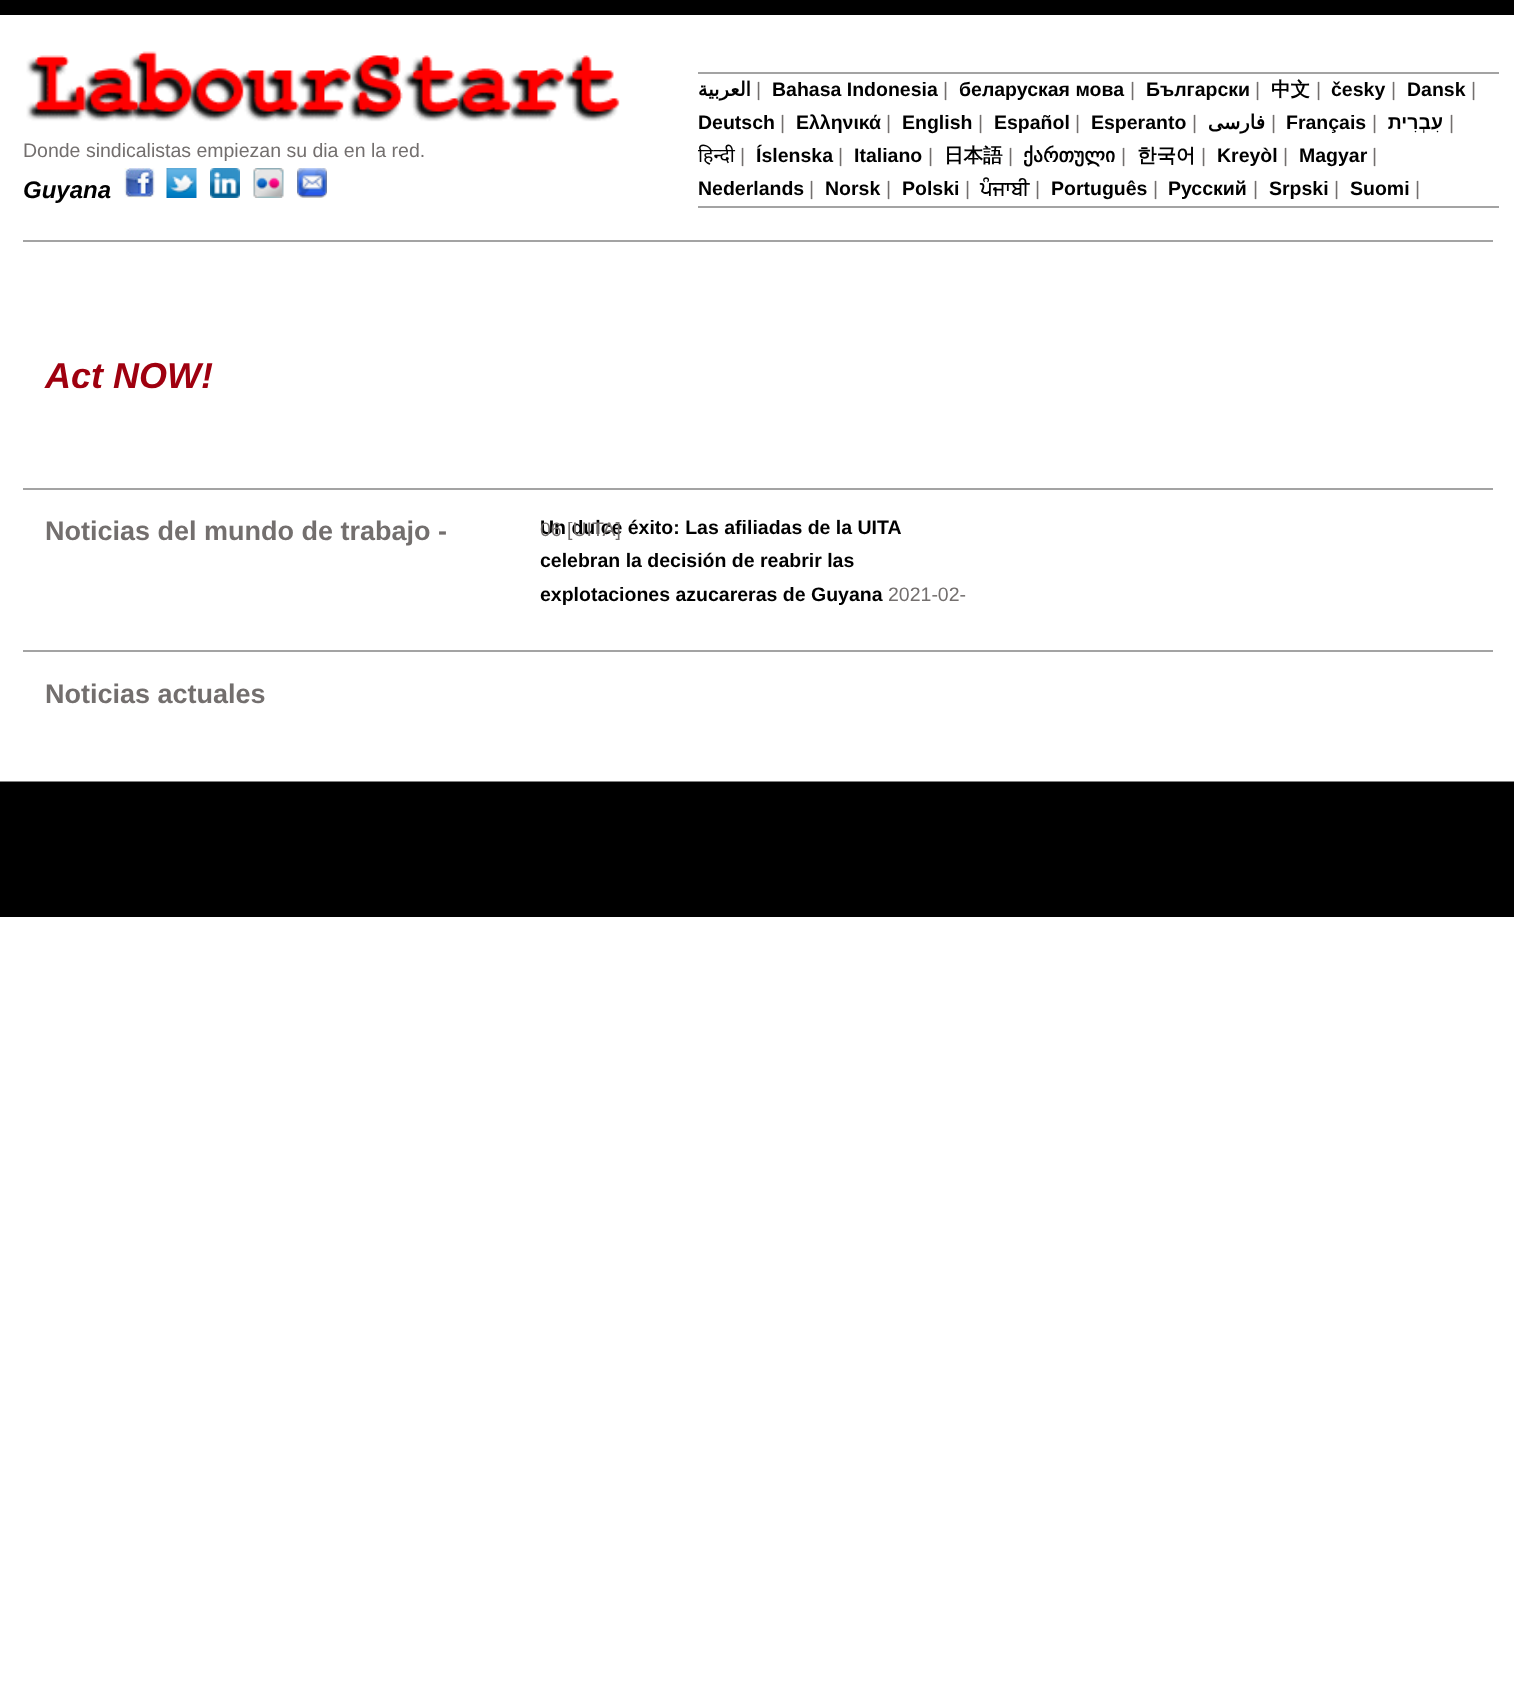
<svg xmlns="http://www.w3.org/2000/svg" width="1514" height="1696">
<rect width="100%" height="100%" fill="#fff"/>
<rect width="1514" height="15" fill="#000"/>
<image x="26" y="51" width="594" height="71" href="media/1.png"/>
<text x="23" y="157" style="font-family:Liberation Sans;font-size:19.5px;fill:#736f6e">Donde sindicalistas empiezan su dia en la red.</text>
<text x="23" y="198" style="font-family:Liberation Sans;font-size:24px;font-weight:bold;font-style:italic;fill:#000">Guyana</text>
<image x="124" y="168" width="31" height="30" href="media/2.png"/>
<image x="166" y="168" width="31" height="30" href="media/3.png"/>
<image x="210" y="168" width="30" height="30" href="media/4.png"/>
<image x="253" y="168" width="31" height="30" href="media/5.png"/>
<image x="297" y="168" width="30" height="30" href="media/6.png"/>
<rect x="698" y="72" width="801" height="2" fill="#a3a3a3"/>
<rect x="698" y="206" width="801" height="2" fill="#a3a3a3"/>
<text x="751" y="96" style="font-family:DejaVu Sans;font-size:19.5px;font-weight:bold;direction:rtl;fill:#000">العربية</text>
<text x="756" y="96" style="font-family:Liberation Sans;font-size:19.5px;fill:#736f6e">|</text>
<text x="772" y="96" style="font-family:Liberation Sans;font-size:19.5px;font-weight:bold;fill:#000">Bahasa Indonesia</text>
<text x="943" y="96" style="font-family:Liberation Sans;font-size:19.5px;fill:#736f6e">|</text>
<text x="959" y="96" style="font-family:Liberation Sans;font-size:19.5px;font-weight:bold;fill:#000">беларуская мова</text>
<text x="1130" y="96" style="font-family:Liberation Sans;font-size:19.5px;fill:#736f6e">|</text>
<text x="1146" y="96" style="font-family:Liberation Sans;font-size:19.5px;font-weight:bold;fill:#000">Български</text>
<text x="1255" y="96" style="font-family:Liberation Sans;font-size:19.5px;fill:#736f6e">|</text>
<text x="1271" y="96" style="font-family:WenQuanYi Zen Hei;font-size:19.5px;font-weight:bold;fill:#000">中文</text>
<text x="1316" y="96" style="font-family:Liberation Sans;font-size:19.5px;fill:#736f6e">|</text>
<text x="1331" y="96" style="font-family:Liberation Sans;font-size:19.5px;font-weight:bold;fill:#000">česky</text>
<text x="1391" y="96" style="font-family:Liberation Sans;font-size:19.5px;fill:#736f6e">|</text>
<text x="1407" y="96" style="font-family:Liberation Sans;font-size:19.5px;font-weight:bold;fill:#000">Dansk</text>
<text x="1471" y="96" style="font-family:Liberation Sans;font-size:19.5px;fill:#736f6e">|</text>
<text x="698" y="129" style="font-family:Liberation Sans;font-size:19.5px;font-weight:bold;fill:#000">Deutsch</text>
<text x="780" y="129" style="font-family:Liberation Sans;font-size:19.5px;fill:#736f6e">|</text>
<text x="796" y="129" style="font-family:Liberation Sans;font-size:19.5px;font-weight:bold;fill:#000">Ελληνικά</text>
<text x="886" y="129" style="font-family:Liberation Sans;font-size:19.5px;fill:#736f6e">|</text>
<text x="902" y="129" style="font-family:Liberation Sans;font-size:19.5px;font-weight:bold;fill:#000">English</text>
<text x="978" y="129" style="font-family:Liberation Sans;font-size:19.5px;fill:#736f6e">|</text>
<text x="994" y="129" style="font-family:Liberation Sans;font-size:19.5px;font-weight:bold;fill:#000">Español</text>
<text x="1075" y="129" style="font-family:Liberation Sans;font-size:19.5px;fill:#736f6e">|</text>
<text x="1091" y="129" style="font-family:Liberation Sans;font-size:19.5px;font-weight:bold;fill:#000">Esperanto</text>
<text x="1192" y="129" style="font-family:Liberation Sans;font-size:19.5px;fill:#736f6e">|</text>
<text x="1265" y="129" style="font-family:DejaVu Sans;font-size:19.5px;font-weight:bold;direction:rtl;fill:#000">فارسی</text>
<text x="1271" y="129" style="font-family:Liberation Sans;font-size:19.5px;fill:#736f6e">|</text>
<text x="1286" y="129" style="font-family:Liberation Sans;font-size:19.5px;font-weight:bold;fill:#000">Français</text>
<text x="1372" y="129" style="font-family:Liberation Sans;font-size:19.5px;fill:#736f6e">|</text>
<text x="1443" y="129" style="font-family:Liberation Sans;font-size:19.5px;font-weight:bold;direction:rtl;fill:#000">עִבְרִית</text>
<text x="1449" y="129" style="font-family:Liberation Sans;font-size:19.5px;fill:#736f6e">|</text>
<text x="698" y="162" style="font-family:Noto Sans;font-size:19.5px;fill:#000">हिन्दी</text>
<text x="740" y="162" style="font-family:Liberation Sans;font-size:19.5px;fill:#736f6e">|</text>
<text x="756" y="162" style="font-family:Liberation Sans;font-size:19.5px;font-weight:bold;fill:#000">Íslenska</text>
<text x="838" y="162" style="font-family:Liberation Sans;font-size:19.5px;fill:#736f6e">|</text>
<text x="854" y="162" style="font-family:Liberation Sans;font-size:19.5px;font-weight:bold;fill:#000">Italiano</text>
<text x="928" y="162" style="font-family:Liberation Sans;font-size:19.5px;fill:#736f6e">|</text>
<text x="944" y="162" style="font-family:WenQuanYi Zen Hei;font-size:19.5px;font-weight:bold;fill:#000">日本語</text>
<text x="1008" y="162" style="font-family:Liberation Sans;font-size:19.5px;fill:#736f6e">|</text>
<text x="1023" y="162" style="font-family:DejaVu Sans;font-size:19.5px;font-weight:bold;fill:#000">ქართული</text>
<text x="1121" y="162" style="font-family:Liberation Sans;font-size:19.5px;fill:#736f6e">|</text>
<text x="1137" y="162" style="font-family:WenQuanYi Zen Hei;font-size:19.5px;font-weight:bold;fill:#000">한국어</text>
<text x="1201" y="162" style="font-family:Liberation Sans;font-size:19.5px;fill:#736f6e">|</text>
<text x="1217" y="162" style="font-family:Liberation Sans;font-size:19.5px;font-weight:bold;fill:#000">Kreyòl</text>
<text x="1283" y="162" style="font-family:Liberation Sans;font-size:19.5px;fill:#736f6e">|</text>
<text x="1299" y="162" style="font-family:Liberation Sans;font-size:19.5px;font-weight:bold;fill:#000">Magyar</text>
<text x="1372" y="162" style="font-family:Liberation Sans;font-size:19.5px;fill:#736f6e">|</text>
<text x="698" y="195" style="font-family:Liberation Sans;font-size:19.5px;font-weight:bold;fill:#000">Nederlands</text>
<text x="809" y="195" style="font-family:Liberation Sans;font-size:19.5px;fill:#736f6e">|</text>
<text x="825" y="195" style="font-family:Liberation Sans;font-size:19.5px;font-weight:bold;fill:#000">Norsk</text>
<text x="886" y="195" style="font-family:Liberation Sans;font-size:19.5px;fill:#736f6e">|</text>
<text x="902" y="195" style="font-family:Liberation Sans;font-size:19.5px;font-weight:bold;fill:#000">Polski</text>
<text x="965" y="195" style="font-family:Liberation Sans;font-size:19.5px;fill:#736f6e">|</text>
<text x="980" y="195" style="font-family:FreeSans;font-size:19.5px;font-weight:bold;fill:#000">ਪੰਜਾਬੀ</text>
<text x="1035" y="195" style="font-family:Liberation Sans;font-size:19.5px;fill:#736f6e">|</text>
<text x="1051" y="195" style="font-family:Liberation Sans;font-size:19.5px;font-weight:bold;fill:#000">Português</text>
<text x="1153" y="195" style="font-family:Liberation Sans;font-size:19.5px;fill:#736f6e">|</text>
<text x="1168" y="195" style="font-family:Liberation Sans;font-size:19.5px;font-weight:bold;fill:#000">Русский</text>
<text x="1253" y="195" style="font-family:Liberation Sans;font-size:19.5px;fill:#736f6e">|</text>
<text x="1269" y="195" style="font-family:Liberation Sans;font-size:19.5px;font-weight:bold;fill:#000">Srpski</text>
<text x="1334" y="195" style="font-family:Liberation Sans;font-size:19.5px;fill:#736f6e">|</text>
<text x="1350" y="195" style="font-family:Liberation Sans;font-size:19.5px;font-weight:bold;fill:#000">Suomi</text>
<text x="1415" y="195" style="font-family:Liberation Sans;font-size:19.5px;fill:#736f6e">|</text>
<rect x="23" y="240" width="1470" height="2" fill="#a3a3a3"/>
<text x="45" y="388" style="font-family:Liberation Sans;font-size:36px;font-weight:bold;font-style:italic;fill:#9f000f">Act NOW!</text>
<rect x="23" y="488" width="1470" height="2" fill="#a3a3a3"/>
<text x="45" y="540" style="font-family:Liberation Sans;font-size:27px;font-weight:bold;fill:#736f6e">Noticias del mundo de trabajo -</text>
<text x="540" y="534" style="font-family:Liberation Sans;font-size:19.5px;font-weight:bold;fill:#000">Un dulce éxito: Las afiliadas de la UITA</text>
<text x="540" y="536" style="font-family:Liberation Sans;font-size:19.5px;fill:#736f6e">06 [UITA]</text>
<text x="540" y="567" style="font-family:Liberation Sans;font-size:19.5px;font-weight:bold;fill:#000">celebran la decisión de reabrir las</text>
<text x="540" y="601" style="font-family:Liberation Sans;font-size:19.5px;font-weight:bold;fill:#000">explotaciones azucareras de Guyana</text>
<text x="888" y="601" style="font-family:Liberation Sans;font-size:19.5px;fill:#736f6e">2021-02-</text>
<rect x="23" y="650" width="1470" height="2" fill="#a3a3a3"/>
<text x="45" y="703" style="font-family:Liberation Sans;font-size:27px;font-weight:bold;fill:#736f6e">Noticias actuales</text>
<rect y="782" width="1514" height="135" fill="#000"/>
<rect y="781" width="1514" height="1" fill="#808080"/>
</svg>
